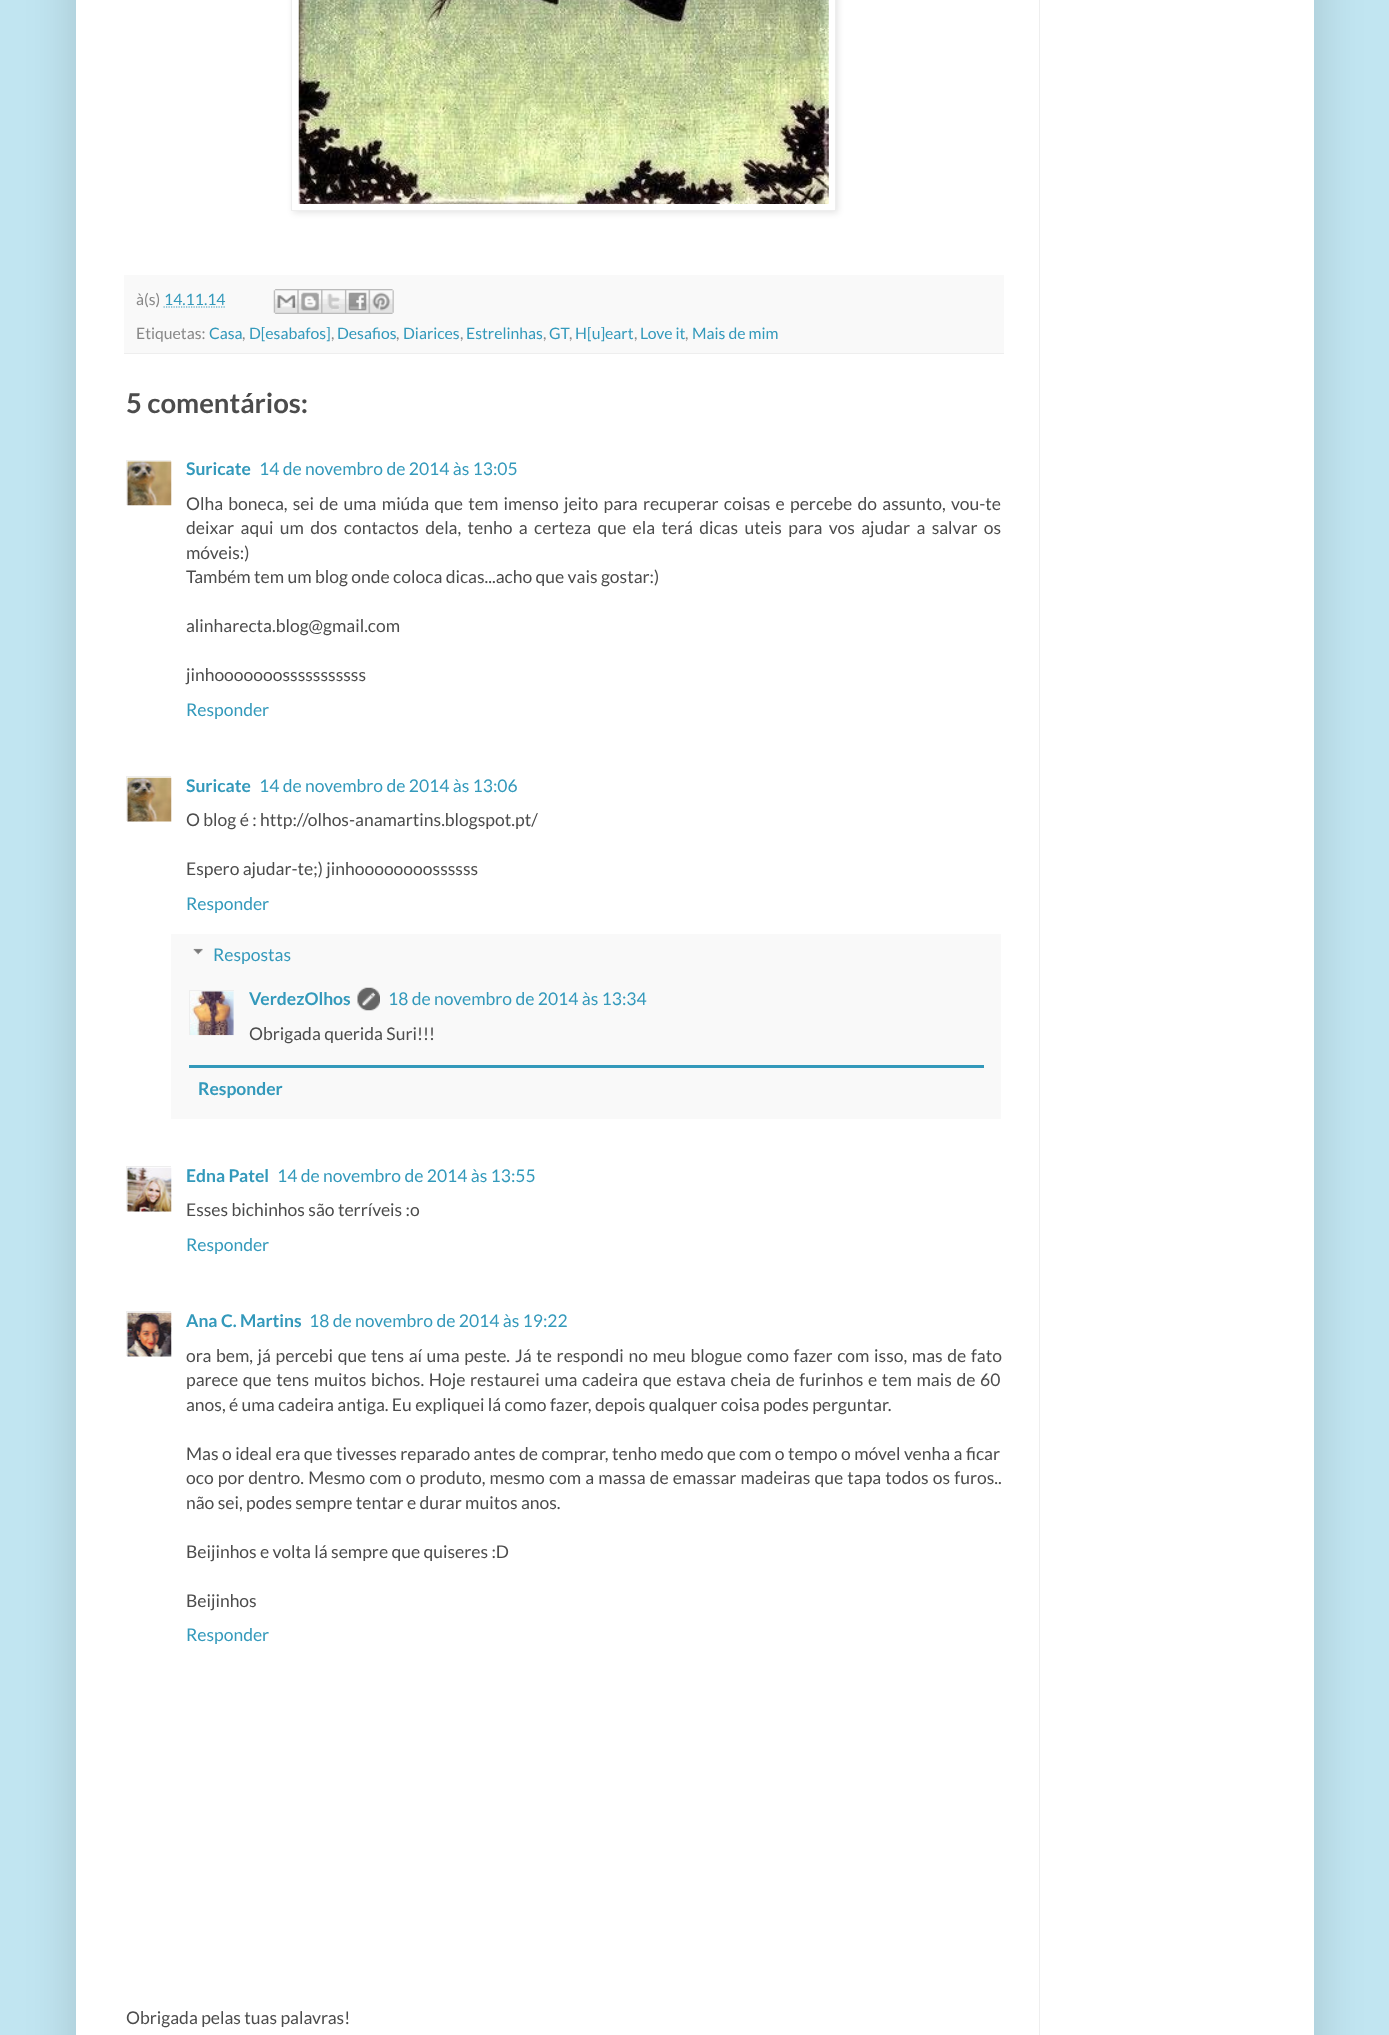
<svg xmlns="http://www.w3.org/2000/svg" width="1389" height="2035">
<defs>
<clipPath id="clip1"><rect x="126" y="460" width="45" height="45"/></clipPath>
<clipPath id="clip2"><rect x="126" y="776" width="45" height="45"/></clipPath>
<clipPath id="clip3"><rect x="189" y="990" width="45" height="45"/></clipPath>
<clipPath id="clip4"><rect x="126" y="1166" width="45" height="45"/></clipPath>
<clipPath id="clip5"><rect x="126" y="1311" width="45" height="45"/></clipPath>
</defs>
<rect width="100%" height="100%" fill="#c1e5f1"/>
<rect x="76" y="-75" width="1238" height="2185" fill="#00000026" filter="blur(25px)"/>
<rect x="76" width="1238" height="2035" fill="#fff"/>
<rect x="293" y="-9" width="545" height="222" fill="#0000001a" filter="blur(3px)"/>
<rect x="291.5" y="-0.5" width="544" height="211" fill="#fff" stroke="#eee"/>
<image x="298" y="0" width="531" height="204" href="media/1.png"/>
<rect x="124" y="275" width="880" height="78" fill="#f9f9f9"/>
<rect x="124" y="353" width="880" height="1" fill="#eee"/>
<text x="136" y="305" style="font-family:Lato;font-size:15.75px;fill:#888">à(s)</text>
<text x="164" y="305" style="font-family:Lato;font-size:15.75px;fill:#39b">14.11.14</text>
<path d="M163.5 307h61.5" fill="none" stroke="#39b" stroke-width="1.2" stroke-dasharray="1.25 1.25"/>
<image x="273" y="289" width="25" height="25" href="media/2.png"/>
<image x="297" y="289" width="25" height="25" href="media/3.png"/>
<image x="321" y="289" width="24" height="25" href="media/4.png"/>
<image x="345" y="289" width="24" height="25" href="media/5.png"/>
<image x="368" y="289" width="26" height="25" href="media/6.png"/>
<text x="136" y="339" style="font-family:Lato;font-size:15.75px;fill:#888">Etiquetas:</text>
<text x="209" y="339" style="font-family:Lato;font-size:15.75px;fill:#39b">Casa</text>
<text x="242" y="339" style="font-family:Lato;font-size:15.75px;fill:#888">,</text>
<text x="249" y="339" style="font-family:Lato;font-size:15.75px;fill:#39b">D[esabafos]</text>
<text x="331" y="339" style="font-family:Lato;font-size:15.75px;fill:#888">,</text>
<text x="337" y="339" style="font-family:Lato;font-size:15.75px;fill:#39b">Desafios</text>
<text x="396" y="339" style="font-family:Lato;font-size:15.75px;fill:#888">,</text>
<text x="403" y="339" style="font-family:Lato;font-size:15.75px;fill:#39b">Diarices</text>
<text x="460" y="339" style="font-family:Lato;font-size:15.75px;fill:#888">,</text>
<text x="466" y="339" style="font-family:Lato;font-size:15.75px;fill:#39b">Estrelinhas</text>
<text x="543" y="339" style="font-family:Lato;font-size:15.75px;fill:#888">,</text>
<text x="549" y="339" style="font-family:Lato;font-size:15.75px;fill:#39b">GT</text>
<text x="569" y="339" style="font-family:Lato;font-size:15.75px;fill:#888">,</text>
<text x="575" y="339" style="font-family:Lato;font-size:15.75px;fill:#39b">H[u]eart</text>
<text x="634" y="339" style="font-family:Lato;font-size:15.75px;fill:#888">,</text>
<text x="640" y="339" style="font-family:Lato;font-size:15.75px;fill:#39b">Love it</text>
<text x="685" y="339" style="font-family:Lato;font-size:15.75px;fill:#888">,</text>
<text x="692" y="339" style="font-family:Lato;font-size:15.75px;fill:#39b">Mais de mim</text>
<text x="126" y="413" style="font-family:Lato;font-size:27.5px;font-weight:bold;fill:#4c4c4c">5 comentários:</text>
<g clip-path="url(#clip1)">
<rect x="126.5" y="460.5" width="47" height="47" fill="none" stroke="#eee"/>
</g>
<image x="127" y="461" width="45" height="45" href="media/7.png"/>
<text x="186" y="475" style="font-family:Lato;font-size:17.5px;font-weight:bold;fill:#39b">Suricate</text>
<text x="259" y="475" style="font-family:Lato;font-size:17.5px;fill:#39b">14 de novembro de 2014 às 13:05</text>
<text x="186" y="510" word-spacing="1.9" style="font-family:Lato;font-size:17.5px;fill:#4c4c4c">Olha boneca, sei de uma miúda que tem imenso jeito para recuperar coisas e percebe do assunto, vou-te</text>
<text x="186" y="534" word-spacing="3" style="font-family:Lato;font-size:17.5px;fill:#4c4c4c">deixar aqui um dos contactos dela, tenho a certeza que ela terá dicas uteis para vos ajudar a salvar os</text>
<text x="186" y="559" style="font-family:Lato;font-size:17.5px;fill:#4c4c4c">móveis:)</text>
<text x="186" y="583" style="font-family:Lato;font-size:17.5px;fill:#4c4c4c">Também tem um blog onde coloca dicas...acho que vais gostar:)</text>
<text x="186" y="632" style="font-family:Lato;font-size:17.5px;fill:#4c4c4c">alinharecta.blog@gmail.com</text>
<text x="186" y="681" style="font-family:Lato;font-size:17.5px;fill:#4c4c4c">jinhooooooosssssssssss</text>
<text x="186" y="716" style="font-family:Lato;font-size:17.5px;fill:#39b">Responder</text>
<g clip-path="url(#clip2)">
<rect x="126.5" y="776.5" width="47" height="47" fill="none" stroke="#eee"/>
</g>
<image x="127" y="777" width="45" height="45" href="media/8.png"/>
<text x="186" y="792" style="font-family:Lato;font-size:17.5px;font-weight:bold;fill:#39b">Suricate</text>
<text x="259" y="792" style="font-family:Lato;font-size:17.5px;fill:#39b">14 de novembro de 2014 às 13:06</text>
<text x="186" y="826" style="font-family:Lato;font-size:17.5px;fill:#4c4c4c">O blog é : http://olhos-anamartins.blogspot.pt/</text>
<text x="186" y="875" style="font-family:Lato;font-size:17.5px;fill:#4c4c4c">Espero ajudar-te;) jinhoooooooossssss</text>
<text x="186" y="910" style="font-family:Lato;font-size:17.5px;fill:#39b">Responder</text>
<rect x="171" y="934" width="830" height="185" fill="#f9f9f9"/>
<image x="193" y="948" width="10" height="7" href="media/9.png"/>
<text x="213" y="961" style="font-family:Lato;font-size:17.5px;fill:#39b">Respostas</text>
<g clip-path="url(#clip3)">
<rect x="189.5" y="990.5" width="45" height="45" fill="none" stroke="#eee"/>
</g>
<image x="190" y="991" width="44" height="45" href="media/10.png"/>
<text x="249" y="1005" style="font-family:Lato;font-size:17.5px;font-weight:bold;fill:#39b">VerdezOlhos</text>
<image x="357" y="987" width="23" height="24" href="media/11.png"/>
<text x="388" y="1005" style="font-family:Lato;font-size:17.5px;fill:#39b">18 de novembro de 2014 às 13:34</text>
<text x="249" y="1040" style="font-family:Lato;font-size:17.5px;fill:#4c4c4c">Obrigada querida Suri!!!</text>
<rect x="189" y="1065" width="795" height="3" fill="#39b"/>
<text x="198" y="1095" style="font-family:Lato;font-size:17.5px;font-weight:bold;fill:#39b">Responder</text>
<g clip-path="url(#clip4)">
<rect x="126.5" y="1166.5" width="47" height="47" fill="none" stroke="#eee"/>
</g>
<image x="127" y="1167" width="45" height="45" href="media/12.png"/>
<text x="186" y="1182" style="font-family:Lato;font-size:17.5px;font-weight:bold;fill:#39b">Edna Patel</text>
<text x="277" y="1182" style="font-family:Lato;font-size:17.5px;fill:#39b">14 de novembro de 2014 às 13:55</text>
<text x="186" y="1216" style="font-family:Lato;font-size:17.5px;fill:#4c4c4c">Esses bichinhos são terríveis :o</text>
<text x="186" y="1251" style="font-family:Lato;font-size:17.5px;fill:#39b">Responder</text>
<g clip-path="url(#clip5)">
<rect x="126.5" y="1311.5" width="47" height="47" fill="none" stroke="#eee"/>
</g>
<image x="127" y="1312" width="45" height="45" href="media/13.png"/>
<text x="186" y="1327" style="font-family:Lato;font-size:17.5px;font-weight:bold;fill:#39b">Ana C. Martins</text>
<text x="309" y="1327" style="font-family:Lato;font-size:17.5px;fill:#39b">18 de novembro de 2014 às 19:22</text>
<text x="186" y="1362" word-spacing="1.25" style="font-family:Lato;font-size:17.5px;fill:#4c4c4c">ora bem, já percebi que tens aí uma peste.</text>
<text x="515" y="1362" word-spacing="1.25" style="font-family:Lato;font-size:17.5px;fill:#4c4c4c">Já te respondi no meu blogue como fazer com isso, mas de fato</text>
<text x="186" y="1386" word-spacing="1.3" style="font-family:Lato;font-size:17.5px;fill:#4c4c4c">parece que tens muitos bichos. Hoje restaurei uma cadeira que estava cheia de furinhos e tem mais de 60</text>
<text x="186" y="1411" style="font-family:Lato;font-size:17.5px;fill:#4c4c4c">anos, é uma cadeira antiga. Eu expliquei lá como fazer, depois qualquer coisa podes perguntar.</text>
<text x="186" y="1460" word-spacing="0.1" style="font-family:Lato;font-size:17.5px;fill:#4c4c4c">Mas o ideal era que tivesses reparado antes de comprar, tenho medo que com o tempo o móvel venha a ficar</text>
<text x="186" y="1484" word-spacing="0.75" style="font-family:Lato;font-size:17.5px;fill:#4c4c4c">oco por dentro. Mesmo com o produto, mesmo com a massa de emassar madeiras que tapa todos os furos..</text>
<text x="186" y="1509" style="font-family:Lato;font-size:17.5px;fill:#4c4c4c">não sei, podes sempre tentar e durar muitos anos.</text>
<text x="186" y="1558" style="font-family:Lato;font-size:17.5px;fill:#4c4c4c">Beijinhos e volta lá sempre que quiseres :D</text>
<text x="186" y="1607" style="font-family:Lato;font-size:17.5px;fill:#4c4c4c">Beijinhos</text>
<text x="186" y="1641" style="font-family:Lato;font-size:17.5px;fill:#39b">Responder</text>
<text x="126" y="2024" style="font-family:Lato;font-size:17.5px;fill:#4c4c4c">Obrigada pelas tuas palavras!</text>
<rect x="1039" width="1" height="2035" fill="#eee"/>
</svg>
